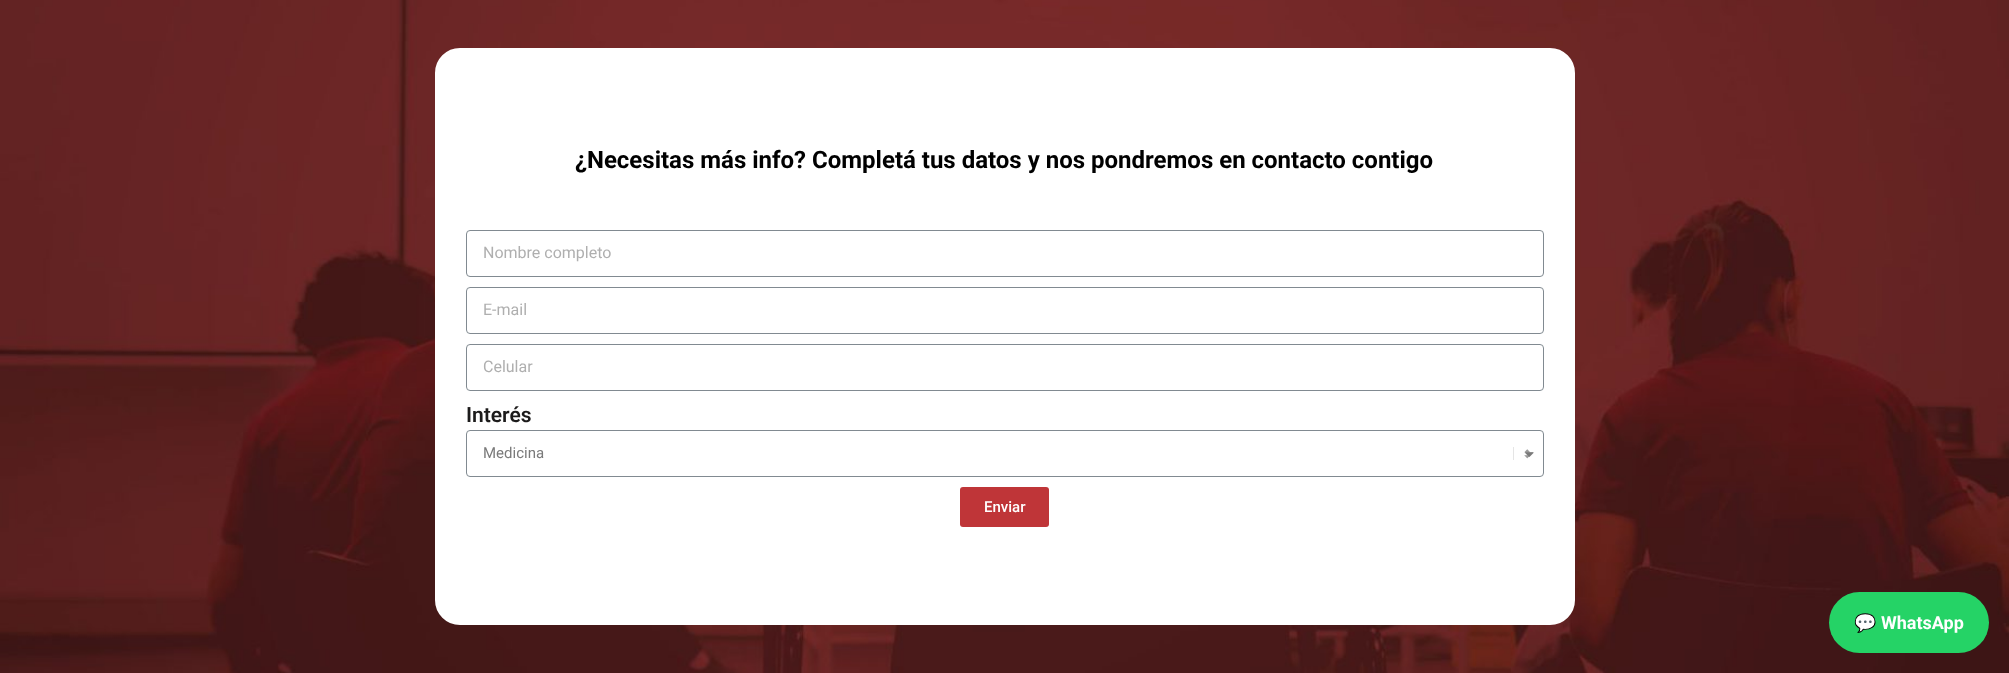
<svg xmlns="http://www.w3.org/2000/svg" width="2009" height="673">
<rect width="100%" height="100%" fill="#fff"/>
<image x="0" y="0" width="2009" height="673" href="media/1.png"/>
<rect x="441.5" y="54.5" width="1127" height="564" rx="18.5" fill="#fff" stroke="#fff" stroke-width="13"/>
<text x="575" y="168" style="font-family:Roboto;font-size:24px;font-weight:bold;fill:#000">¿Necesitas más info? Completá tus datos y nos pondremos en contacto contigo</text>
<rect x="466.5" y="230.5" width="1077" height="46" rx="3.5" fill="none" stroke="#818a91"/>
<text x="483" y="258" style="font-family:Roboto;font-size:16px;fill:#afafaf">Nombre completo</text>
<rect x="466.5" y="287.5" width="1077" height="46" rx="3.5" fill="none" stroke="#818a91"/>
<text x="483" y="315" style="font-family:Roboto;font-size:16px;fill:#afafaf">E-mail</text>
<rect x="466.5" y="344.5" width="1077" height="46" rx="3.5" fill="none" stroke="#818a91"/>
<text x="483" y="372" style="font-family:Roboto;font-size:16px;fill:#afafaf">Celular</text>
<text x="466" y="422" style="font-family:Roboto;font-size:21px;font-weight:600;fill:#1c1b1b">Interés</text>
<image x="1513" y="447" width="18" height="13" href="media/2.png"/>
<rect x="466.5" y="430.5" width="1077" height="46" rx="3.5" fill="none" stroke="#818a91"/>
<text x="483" y="458" style="font-family:Roboto;font-size:15px;fill:#7a7a7a">Medicina</text>
<image x="1525" y="452" width="9" height="5" href="media/3.png"/>
<rect x="960" y="487" width="89" height="40" rx="3" fill="#bf3538"/>
<text x="984" y="512" style="font-family:Roboto;font-size:15px;font-weight:500;fill:#fff">Enviar</text>
<rect x="1829" y="592" width="160" height="61" rx="30.5" fill="#25d366"/>
<text x="1854" y="629" style="font-family:Noto Color Emoji;font-size:18px;font-weight:bold;fill:#fff">💬</text>
<text x="1881" y="629" style="font-family:Roboto;font-size:18px;font-weight:bold;fill:#fff">WhatsApp</text>
</svg>
